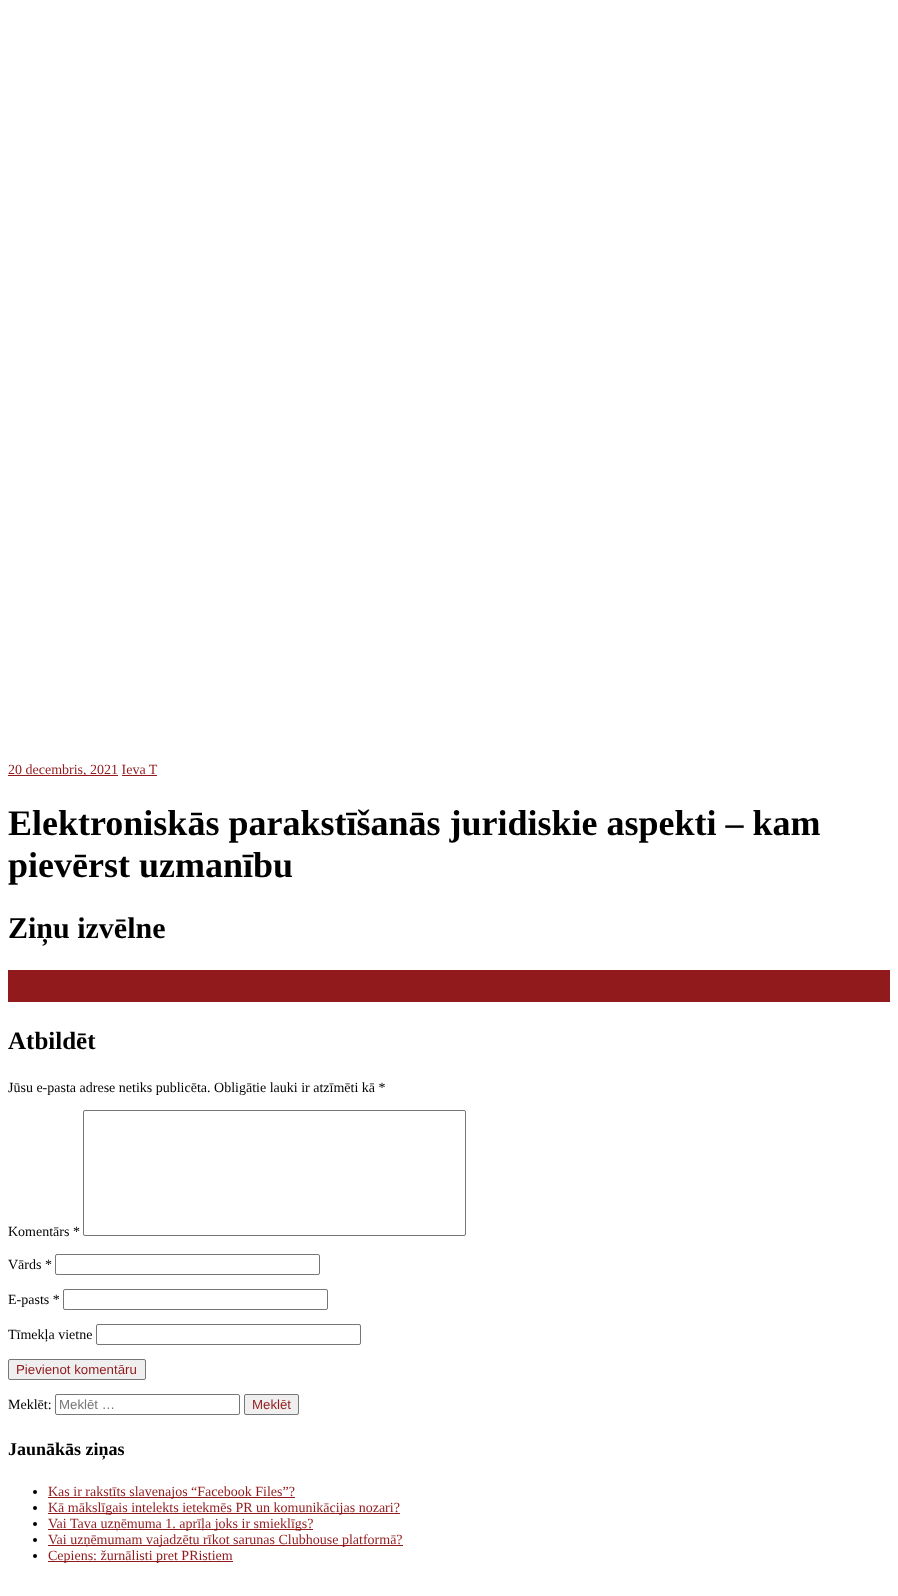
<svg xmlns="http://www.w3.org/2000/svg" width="898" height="1596">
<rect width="100%" height="100%" fill="#fff"/>
<rect x="8" y="775" width="110" height="1" fill="#911a1d"/>
<text x="8" y="774" style="font-family:Liberation Serif;font-size:14px;fill:#911a1d">20 decembris, 2021 Ieva T</text>
<rect x="122" y="775" width="35" height="1" fill="#911a1d"/>
<text x="8" y="835" style="font-family:Liberation Serif;font-size:36px;font-weight:bold;fill:#000">Elektroniskās parakstīšanās juridiskie aspekti – kam</text>
<text x="8" y="877" style="font-family:Liberation Serif;font-size:36px;font-weight:bold;fill:#000">pievērst uzmanību</text>
<text x="8" y="938" style="font-family:Liberation Serif;font-size:30px;font-weight:bold;fill:#000">Ziņu izvēlne</text>
<rect x="8" y="970" width="882" height="32" fill="#911a1d"/>
<text x="8" y="1049" style="font-family:Liberation Serif;font-size:25px;font-weight:bold;fill:#000">Atbildēt</text>
<text x="8" y="1092" style="font-family:Liberation Serif;font-size:14px;fill:#000">Jūsu e-pasta adrese netiks publicēta. Obligātie lauki ir atzīmēti kā *</text>
<text x="8" y="1236" style="font-family:Liberation Serif;font-size:14px;fill:#000">Komentārs *</text>
<rect x="83.5" y="1110.5" width="382" height="125" rx="1.5" fill="none" stroke="#767676"/>
<text x="8" y="1269" style="font-family:Liberation Serif;font-size:14px;fill:#000">Vārds *</text>
<rect x="55.5" y="1254.5" width="264" height="20" rx="1.5" fill="none" stroke="#767676"/>
<text x="8" y="1304" style="font-family:Liberation Serif;font-size:14px;fill:#000">E-pasts *</text>
<rect x="63.5" y="1289.5" width="264" height="20" rx="1.5" fill="none" stroke="#767676"/>
<text x="8" y="1339" style="font-family:Liberation Serif;font-size:14px;fill:#000">Tīmekļa vietne</text>
<rect x="96.5" y="1324.5" width="264" height="20" rx="1.5" fill="none" stroke="#767676"/>
<rect x="8.5" y="1359.5" width="137" height="20" rx="1.5" fill="#efefef" stroke="#767676"/>
<text x="16" y="1374" style="font-family:Liberation Sans;font-size:13.25px;fill:#911a1d">Pievienot komentāru</text>
<text x="8" y="1409" style="font-family:Liberation Serif;font-size:14px;fill:#000">Meklēt:</text>
<rect x="55.5" y="1394.5" width="184" height="20" rx="1.5" fill="none" stroke="#767676"/>
<text x="59" y="1409" style="font-family:Liberation Sans;font-size:13.25px;fill:#757575">Meklēt …</text>
<rect x="244.5" y="1394.5" width="54" height="20" rx="1.5" fill="#efefef" stroke="#767676"/>
<text x="252" y="1409" style="font-family:Liberation Sans;font-size:13.25px;fill:#911a1d">Meklēt</text>
<text x="8" y="1455" style="font-family:Liberation Serif;font-size:18px;font-weight:bold;fill:#000">Jaunākās ziņas</text>
<circle cx="35" cy="1492" r="2" fill="#000"/>
<rect x="48" y="1497" width="247" height="1" fill="#911a1d"/>
<text x="48" y="1496" style="font-family:Liberation Serif;font-size:14px;fill:#911a1d">Kas ir rakstīts slavenajos “Facebook Files”?</text>
<circle cx="35" cy="1508" r="2" fill="#000"/>
<rect x="48" y="1513" width="352" height="1" fill="#911a1d"/>
<text x="48" y="1512" style="font-family:Liberation Serif;font-size:14px;fill:#911a1d">Kā mākslīgais intelekts ietekmēs PR un komunikācijas nozari?</text>
<circle cx="35" cy="1524" r="2" fill="#000"/>
<rect x="48" y="1529" width="265" height="1" fill="#911a1d"/>
<text x="48" y="1528" style="font-family:Liberation Serif;font-size:14px;fill:#911a1d">Vai Tava uzņēmuma 1. aprīļa joks ir smieklīgs?</text>
<circle cx="35" cy="1540" r="2" fill="#000"/>
<rect x="48" y="1545" width="355" height="1" fill="#911a1d"/>
<text x="48" y="1544" style="font-family:Liberation Serif;font-size:14px;fill:#911a1d">Vai uzņēmumam vajadzētu rīkot sarunas Clubhouse platformā?</text>
<circle cx="35" cy="1556" r="2" fill="#000"/>
<rect x="48" y="1561" width="185" height="1" fill="#911a1d"/>
<text x="48" y="1560" style="font-family:Liberation Serif;font-size:14px;fill:#911a1d">Cepiens: žurnālisti pret PRistiem</text>
</svg>
